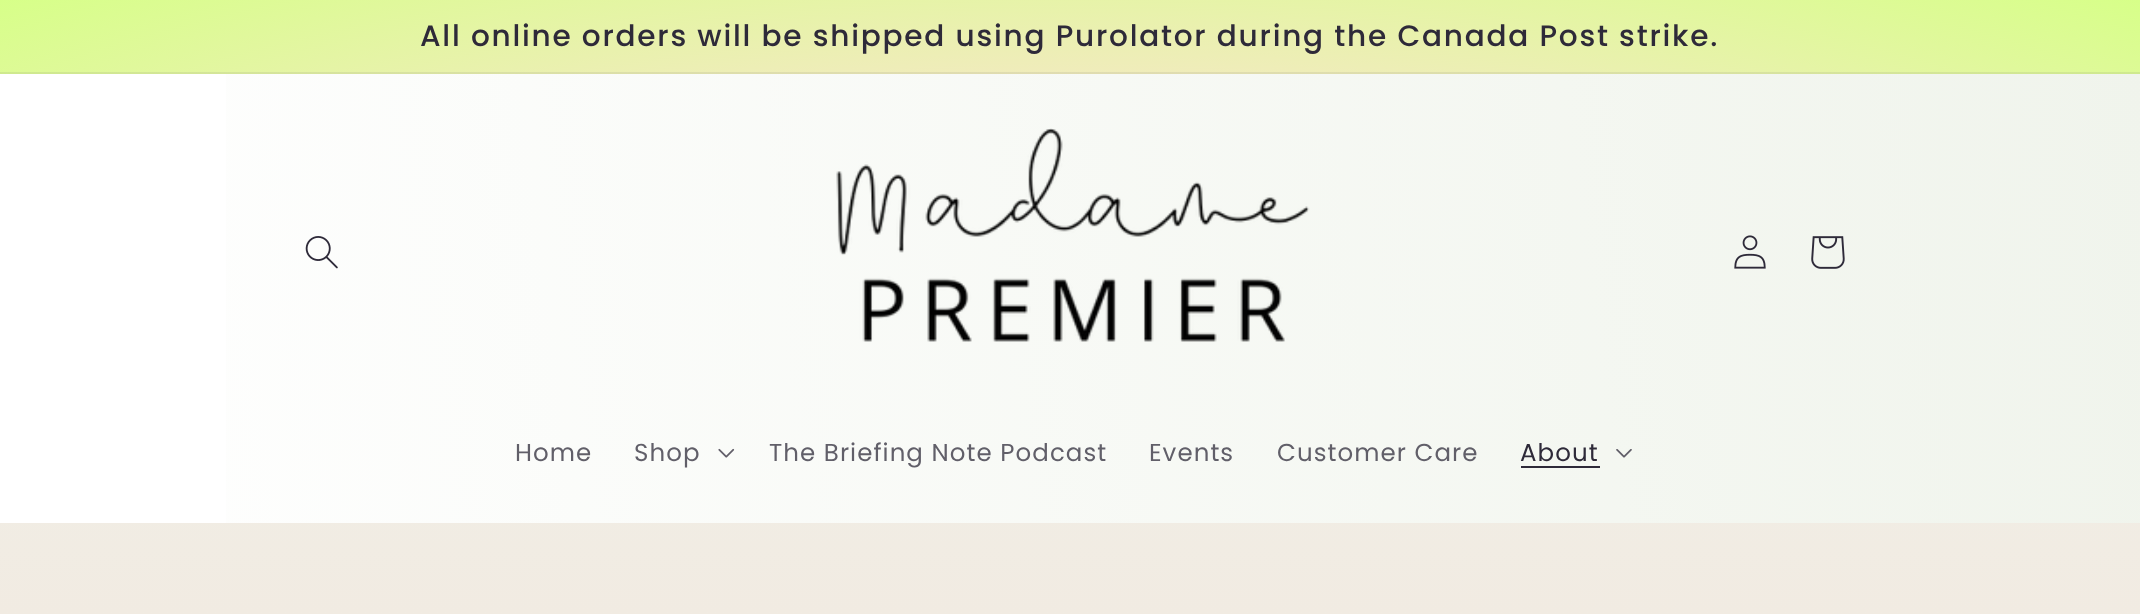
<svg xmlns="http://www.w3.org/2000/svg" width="2140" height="614">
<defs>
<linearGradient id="g1" gradientUnits="userSpaceOnUse" x1="1070" y1="0" x2="1070" y2="614"><stop offset="0" stop-color="#f0f4ec"/><stop offset="1" stop-color="#f1ebe2"/></linearGradient>
<radialGradient id="g2" gradientUnits="userSpaceOnUse" cx="0" cy="0" r="1" gradientTransform="matrix(1513 0 0 434 1070 307)"><stop offset="0" stop-color="#ffe5e5"/><stop offset="0.25" stop-color="#ffe0da"/><stop offset="1" stop-color="#d7ff89"/></radialGradient>
<radialGradient id="g3" gradientUnits="userSpaceOnUse" cx="0" cy="0" r="1" gradientTransform="matrix(1513 0 0 434 1070 307)"><stop offset="0" stop-color="#eed6d7"/><stop offset="0.25" stop-color="#eed1cd"/><stop offset="1" stop-color="#c9ee83"/></radialGradient>
<linearGradient id="g4" gradientUnits="userSpaceOnUse" x1="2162" y1="173" x2="-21" y2="441"><stop offset="0" stop-color="#f0f4ec"/><stop offset="1" stop-color="#fff"/></linearGradient>
</defs>
<rect width="100%" height="100%" fill="#fff"/>
<rect y="523" width="2140" height="91" fill="url(#g1)"/>
<rect width="2140" height="72" fill="url(#g2)"/>
<rect y="72" width="2140" height="2" fill="url(#g3)"/>
<text x="420" y="46" style="font-family:Poppins;font-size:29.55px;font-weight:500;letter-spacing:1.75px;fill:#2e2a39">All online orders will be shipped using Purolator during the Canada Post strike.</text>
<rect x="226" y="74" width="1914" height="449" fill="url(#g4)"/>
<image x="305" y="236" width="33" height="33" href="media/1.png"/>
<image x="836" y="128" width="474" height="214" href="media/2.png"/>
<image x="1734" y="235" width="32" height="34" href="media/3.png"/>
<image x="1811" y="236" width="34" height="33" href="media/4.png"/>
<text x="515" y="461" style="font-family:Poppins;font-size:24.5px;letter-spacing:1.05px;fill:#615f69">Home</text>
<text x="634" y="461" style="font-family:Poppins;font-size:24.5px;letter-spacing:1.05px;fill:#615f69">Shop</text>
<image x="718" y="448" width="17" height="10" href="media/5.png"/>
<text x="769" y="461" style="font-family:Poppins;font-size:24.5px;letter-spacing:1.05px;fill:#615f69">The Briefing Note Podcast</text>
<text x="1149" y="461" style="font-family:Poppins;font-size:24.5px;letter-spacing:1.05px;fill:#615f69">Events</text>
<text x="1277" y="461" style="font-family:Poppins;font-size:24.5px;letter-spacing:1.05px;fill:#615f69">Customer Care</text>
<text x="1520" y="461" style="font-family:Poppins;font-size:24.5px;letter-spacing:1.05px;fill:#2e2a39">About</text>
<rect x="1521" y="466" width="79" height="2" fill="#2e2a39"/>
<image x="1616" y="449" width="16" height="9" href="media/6.png"/>
</svg>
